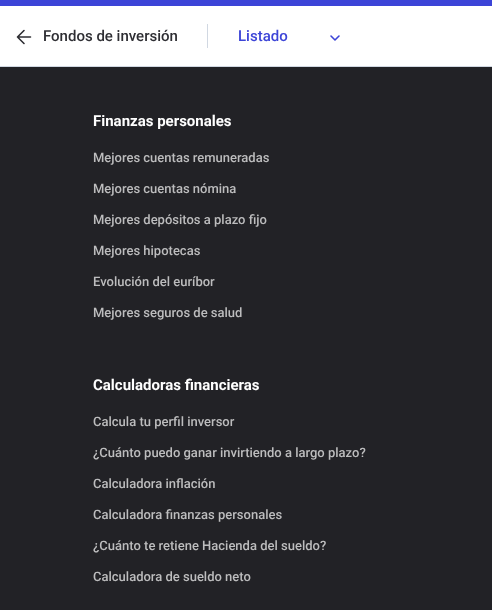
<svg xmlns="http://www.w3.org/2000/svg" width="492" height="610">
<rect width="100%" height="100%" fill="#222226"/>
<rect width="492" height="6" fill="#3c44d7"/>
<rect y="6" width="492" height="60" fill="#fff"/>
<rect y="66" width="492" height="1" fill="#d1d8e2"/>
<path d="M30.5 37h-13m6.5 6.5l-6.5-6.5l6.5-6.5" fill="none" stroke="#2e2e33" stroke-width="1.6" stroke-linecap="round" stroke-linejoin="round"/>
<text x="43" y="41" style="font-family:Roboto;font-size:15px;font-weight:500;fill:#2e2e33">Fondos de inversión</text>
<rect x="207" y="24" width="1" height="24" fill="#d1d8e2"/>
<text x="238" y="41" style="font-family:Roboto;font-size:15px;font-weight:500;fill:#3c44d7">Listado</text>
<path d="M331 36l4 4l4-4" fill="none" stroke="#3c44d7" stroke-width="1.6" stroke-linecap="round" stroke-linejoin="round"/>
<text x="93" y="126" style="font-family:Roboto;font-size:15px;font-weight:bold;fill:#fff">Finanzas personales</text>
<text x="93" y="162" style="font-family:Roboto;font-size:13px;font-weight:500;fill:#bdbdbe">Mejores cuentas remuneradas</text>
<text x="93" y="193" style="font-family:Roboto;font-size:13px;font-weight:500;fill:#bdbdbe">Mejores cuentas nómina</text>
<text x="93" y="224" style="font-family:Roboto;font-size:13px;font-weight:500;fill:#bdbdbe">Mejores depósitos a plazo fijo</text>
<text x="93" y="255" style="font-family:Roboto;font-size:13px;font-weight:500;fill:#bdbdbe">Mejores hipotecas</text>
<text x="93" y="286" style="font-family:Roboto;font-size:13px;font-weight:500;fill:#bdbdbe">Evolución del euríbor</text>
<text x="93" y="317" style="font-family:Roboto;font-size:13px;font-weight:500;fill:#bdbdbe">Mejores seguros de salud</text>
<text x="93" y="390" style="font-family:Roboto;font-size:15px;font-weight:bold;fill:#fff">Calculadoras financieras</text>
<text x="93" y="426" style="font-family:Roboto;font-size:13px;font-weight:500;fill:#bdbdbe">Calcula tu perfil inversor</text>
<text x="93" y="457" style="font-family:Roboto;font-size:13px;font-weight:500;fill:#bdbdbe">¿Cuánto puedo ganar invirtiendo a largo plazo?</text>
<text x="93" y="488" style="font-family:Roboto;font-size:13px;font-weight:500;fill:#bdbdbe">Calculadora inflación</text>
<text x="93" y="519" style="font-family:Roboto;font-size:13px;font-weight:500;fill:#bdbdbe">Calculadora finanzas personales</text>
<text x="93" y="550" style="font-family:Roboto;font-size:13px;font-weight:500;fill:#bdbdbe">¿Cuánto te retiene Hacienda del sueldo?</text>
<text x="93" y="581" style="font-family:Roboto;font-size:13px;font-weight:500;fill:#bdbdbe">Calculadora de sueldo neto</text>
</svg>
